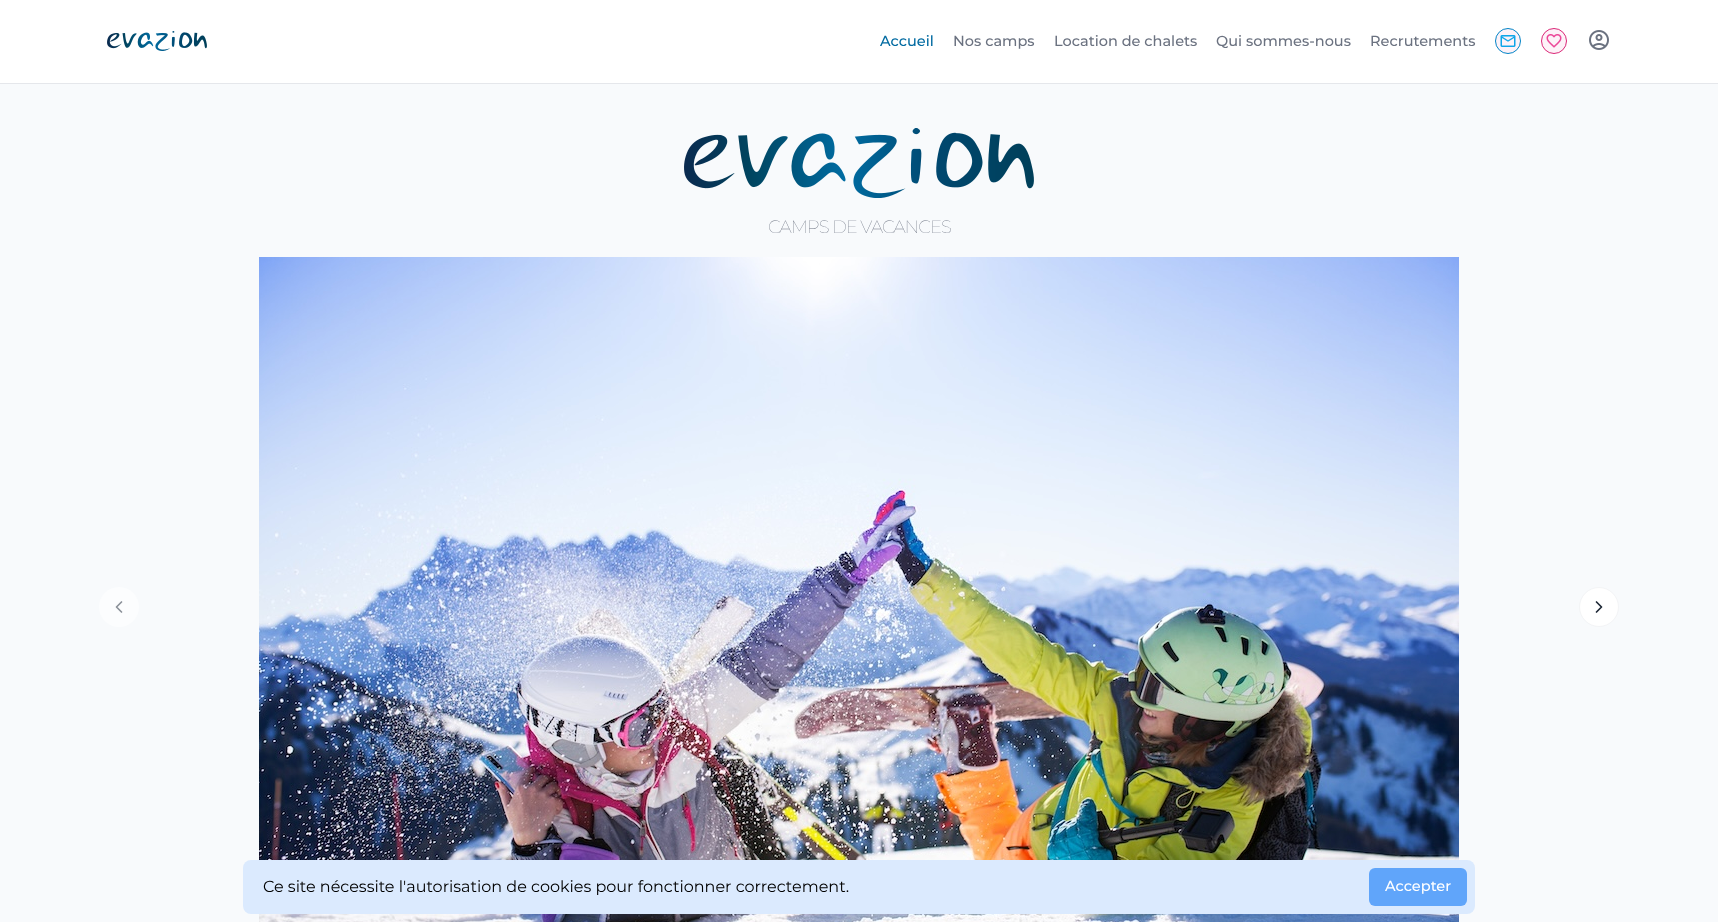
<svg xmlns="http://www.w3.org/2000/svg" width="1718" height="922">
<rect width="100%" height="100%" fill="#f8fafc"/>
<rect width="1718" height="83" fill="#fff"/>
<rect y="83" width="1718" height="1" fill="#e5e7eb"/>
<image x="107" y="31" width="100" height="20" href="media/1.png"/>
<text x="880" y="46" style="font-family:Montserrat;font-size:14.5px;font-weight:500;fill:#016aa1">Accueil</text>
<text x="953" y="46" style="font-family:Montserrat;font-size:14.5px;font-weight:500;fill:#6b7280">Nos camps</text>
<text x="1054" y="46" style="font-family:Montserrat;font-size:14.5px;font-weight:500;fill:#6b7280">Location de chalets</text>
<text x="1216" y="46" style="font-family:Montserrat;font-size:14.5px;font-weight:500;fill:#6b7280">Qui sommes-nous</text>
<text x="1370" y="46" style="font-family:Montserrat;font-size:14.5px;font-weight:500;fill:#6b7280">Recrutements</text>
<circle cx="1508" cy="41" r="12.5" fill="#fdf2f8" stroke="#0284c7"/>
<image x="1500" y="35" width="16" height="12" href="media/2.png"/>
<circle cx="1554" cy="41" r="12.5" fill="#fdf2f8" stroke="#db2777"/>
<image x="1546" y="34" width="16" height="14" href="media/3.png"/>
<image x="1589" y="30" width="20" height="20" href="media/4.png"/>
<image x="684" y="128" width="350" height="70" href="media/5.png"/>
<text x="768" y="233" style="font-family:Montserrat;font-size:18px;font-weight:100;letter-spacing:-1px;fill:#6b7280">CAMPS DE VACANCES</text>
<circle cx="119" cy="607" r="20" fill="#fcfdfe"/>
<path d="M121.5 612l-5-5l5-5" fill="none" stroke="#8c929a" stroke-width="1.7" stroke-linecap="round" stroke-linejoin="round"/>
<image x="259" y="257" width="1200" height="665" href="media/6.png"/>
<circle cx="1599" cy="607" r="19.5" fill="#fff" stroke="#f3f4f6"/>
<path d="M1596.5 612l5-5l-5-5" fill="none" stroke="#1f2937" stroke-width="1.7" stroke-linecap="round" stroke-linejoin="round"/>
<rect x="243" y="860" width="1232" height="54" rx="8" fill="#dbeafe"/>
<text x="263" y="892" style="font-family:Montserrat;font-size:16px;fill:#000">Ce site nécessite l'autorisation de cookies pour fonctionner correctement.</text>
<rect x="1369" y="868" width="98" height="38" rx="6" fill="#60a5fa"/>
<text x="1385" y="891" style="font-family:Montserrat;font-size:14.5px;font-weight:500;fill:#fff">Accepter</text>
</svg>
